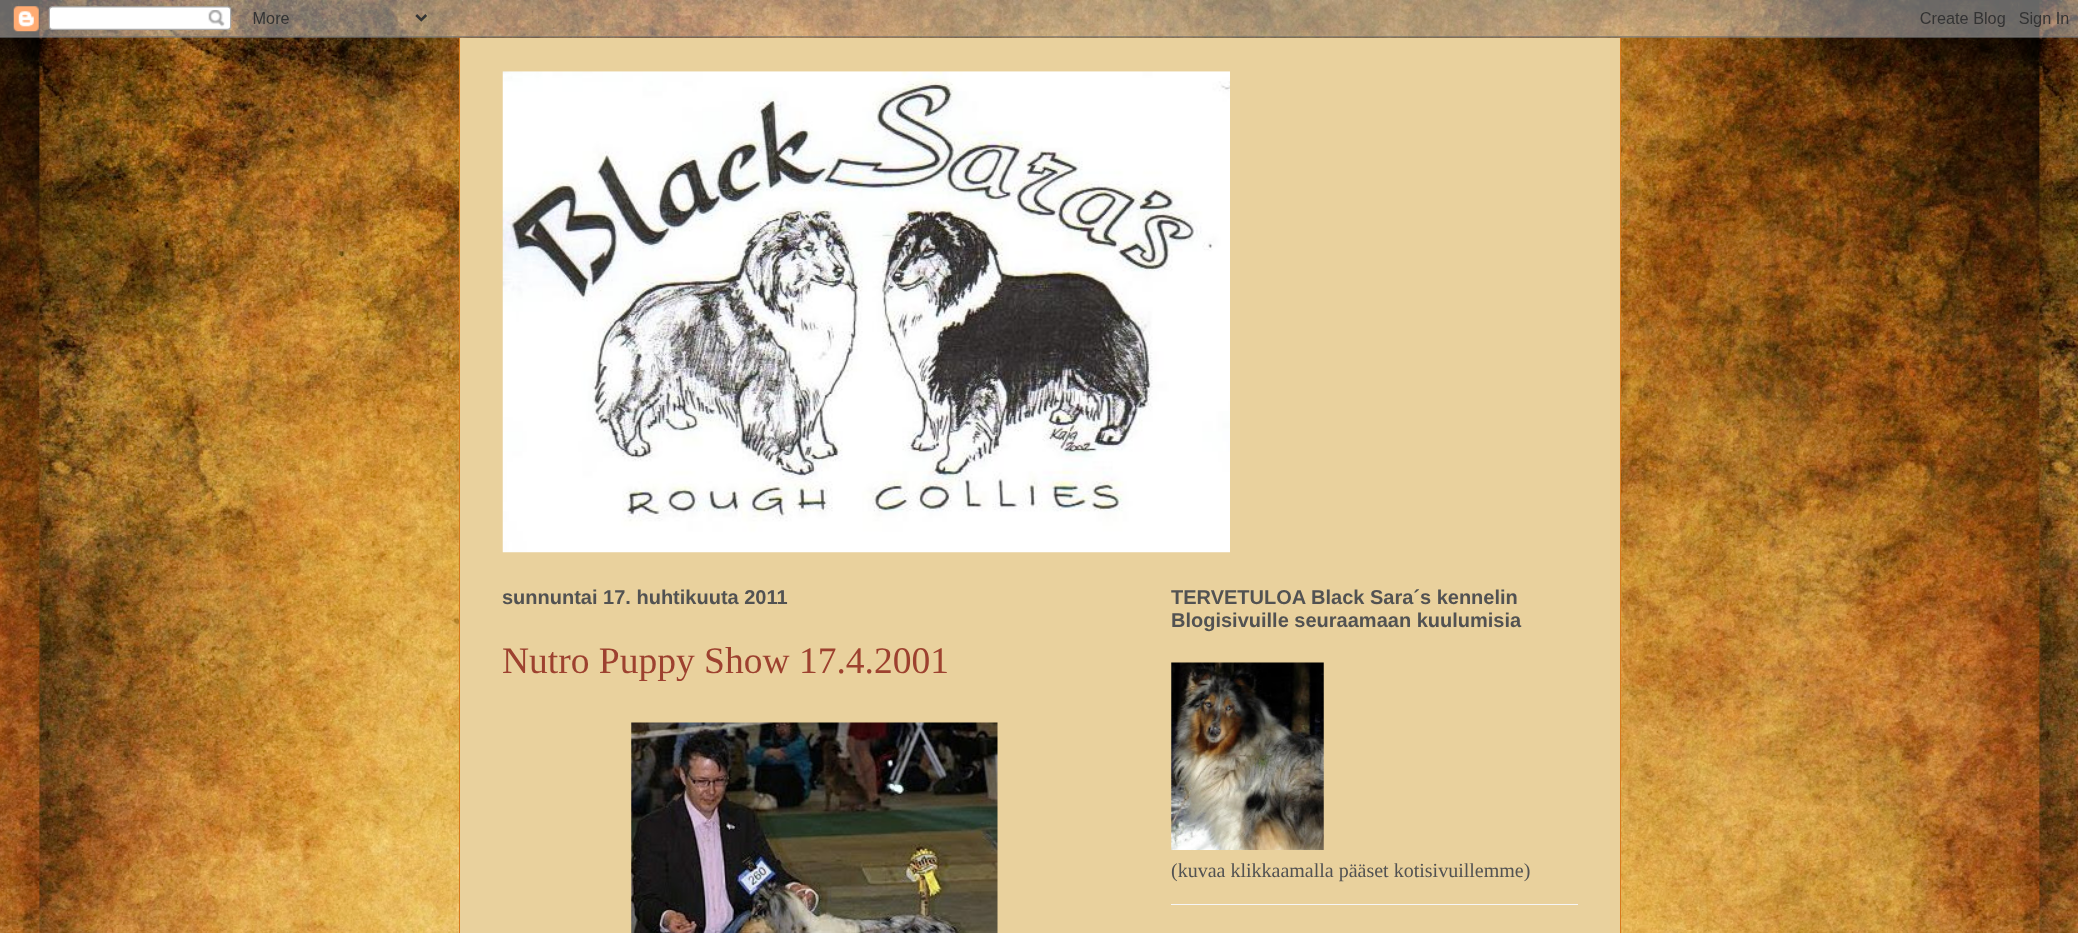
<svg xmlns="http://www.w3.org/2000/svg" width="2078" height="933">
<rect width="100%" height="100%" fill="#fff"/>
<image x="0" y="0" width="2078" height="933" href="media/1.png"/>
<image x="0" y="0" width="2078" height="38" href="media/2.png"/>
<rect x="460" y="38" width="1160" height="895" fill="#e9d19d"/>
<rect x="1620" y="38" width="1" height="895" fill="#d9781c"/>
<rect x="459" y="38" width="1" height="895" fill="#d9781c"/>
<image x="502" y="71" width="728" height="482" href="media/3.png"/>
<text x="502" y="604" style="font-family:Liberation Sans;font-size:20px;font-weight:bold;fill:#525252">sunnuntai 17. huhtikuuta 2011</text>
<text x="502" y="673" style="font-family:Liberation Serif;font-size:37.5px;fill:#9d412f">Nutro Puppy Show 17.4.2001</text>
<image x="631" y="722" width="367" height="211" href="media/4.png"/>
<rect x="1171" y="904" width="407" height="1" fill="#f6f6f6"/>
<text x="1171" y="604" style="font-family:Liberation Sans;font-size:20px;font-weight:bold;fill:#525252">TERVETULOA Black Sara´s kennelin</text>
<text x="1171" y="627" style="font-family:Liberation Sans;font-size:20px;font-weight:bold;fill:#525252">Blogisivuille seuraamaan kuulumisia</text>
<image x="1171" y="662" width="153" height="188" href="media/5.png"/>
<text x="1171" y="877" style="font-family:Liberation Serif;font-size:20px;fill:#525252">(kuvaa klikkaamalla pääset kotisivuillemme)</text>
</svg>
